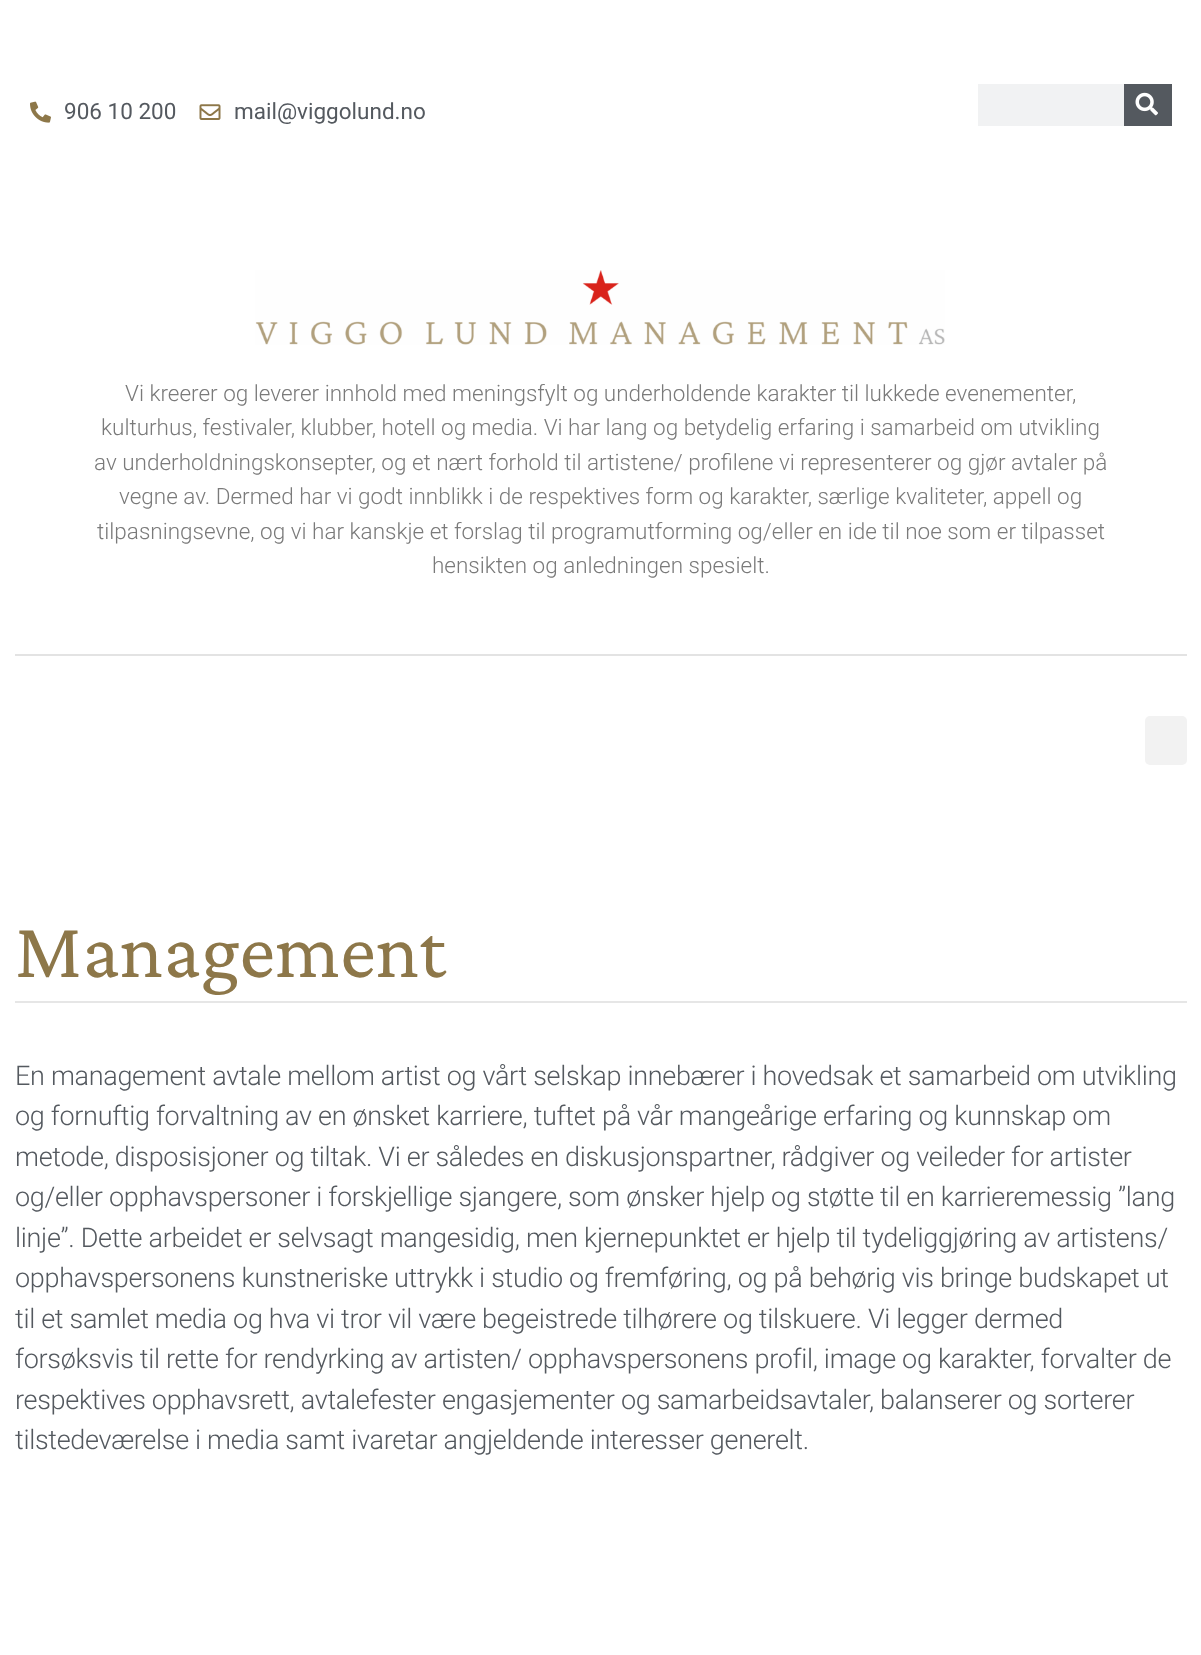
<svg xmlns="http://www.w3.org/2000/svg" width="1201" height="1655">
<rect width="100%" height="100%" fill="#fff"/>
<image x="30" y="101" width="21" height="22" href="media/1.png"/>
<text x="64" y="119" style="font-family:Roboto;font-size:22.5px;fill:#54595f">906 10 200</text>
<image x="199" y="104" width="22" height="16" href="media/2.png"/>
<text x="234" y="119" style="font-family:Roboto;font-size:22.5px;fill:#54595f">mail@viggolund.no</text>
<rect x="978" y="84" width="146" height="42" fill="#f1f2f3"/>
<rect x="1124" y="84" width="48" height="42" fill="#54595f"/>
<image x="1135" y="92" width="23" height="24" href="media/3.png"/>
<image x="255" y="270" width="690" height="75" href="media/4.png"/>
<text x="125" y="401" style="font-family:Roboto;font-size:22.5px;font-weight:300;fill:#7a7a7a">Vi kreerer og leverer innhold med meningsfylt og underholdende karakter til lukkede evenementer,</text>
<text x="101" y="435" style="font-family:Roboto;font-size:22.5px;font-weight:300;fill:#7a7a7a">kulturhus, festivaler, klubber, hotell og media. Vi har lang og betydelig erfaring i samarbeid om utvikling</text>
<text x="94" y="470" style="font-family:Roboto;font-size:22.5px;font-weight:300;fill:#7a7a7a">av underholdningskonsepter, og et nært forhold til artistene/ profilene vi representerer og gjør avtaler på</text>
<text x="119" y="504" style="font-family:Roboto;font-size:22.5px;font-weight:300;fill:#7a7a7a">vegne av. Dermed har vi godt innblikk i de respektives form og karakter, særlige kvaliteter, appell og</text>
<text x="97" y="539" style="font-family:Roboto;font-size:22.5px;font-weight:300;fill:#7a7a7a">tilpasningsevne, og vi har kanskje et forslag til programutforming og/eller en ide til noe som er tilpasset</text>
<text x="432" y="573" style="font-family:Roboto;font-size:22.5px;font-weight:300;fill:#7a7a7a">hensikten og anledningen spesielt.</text>
<rect x="15" y="654" width="1172" height="2" fill="#e3e3e3"/>
<rect x="1145" y="716" width="42" height="49" rx="5" fill="#f2f2f2"/>
<text x="15" y="977" style="font-family:Crimson Pro;font-size:81px;fill:#8d7749">Management</text>
<rect x="15" y="1001" width="1172" height="2" fill="#e6e6e6"/>
<text x="15" y="1085" style="font-family:Roboto;font-size:27px;font-weight:300;letter-spacing:-0.3px;fill:#54595f">En management avtale mellom artist og vårt selskap innebærer i hovedsak et samarbeid om utvikling</text>
<text x="15" y="1125" style="font-family:Roboto;font-size:27px;font-weight:300;letter-spacing:-0.3px;fill:#54595f">og fornuftig forvaltning av en ønsket karriere, tuftet på vår mangeårige erfaring og kunnskap om</text>
<text x="15" y="1166" style="font-family:Roboto;font-size:27px;font-weight:300;letter-spacing:-0.3px;fill:#54595f">metode, disposisjoner og tiltak. Vi er således en diskusjonspartner, rådgiver og veileder for artister</text>
<text x="15" y="1206" style="font-family:Roboto;font-size:27px;font-weight:300;letter-spacing:-0.3px;fill:#54595f">og/eller opphavspersoner i forskjellige sjangere, som ønsker hjelp og støtte til en karrieremessig ”lang</text>
<text x="15" y="1247" style="font-family:Roboto;font-size:27px;font-weight:300;letter-spacing:-0.3px;fill:#54595f">linje”. Dette arbeidet er selvsagt mangesidig, men kjernepunktet er hjelp til tydeliggjøring av artistens/</text>
<text x="15" y="1287" style="font-family:Roboto;font-size:27px;font-weight:300;letter-spacing:-0.3px;fill:#54595f">opphavspersonens kunstneriske uttrykk i studio og fremføring, og på behørig vis bringe budskapet ut</text>
<text x="15" y="1328" style="font-family:Roboto;font-size:27px;font-weight:300;letter-spacing:-0.3px;fill:#54595f">til et samlet media og hva vi tror vil være begeistrede tilhørere og tilskuere. Vi legger dermed</text>
<text x="15" y="1368" style="font-family:Roboto;font-size:27px;font-weight:300;letter-spacing:-0.3px;fill:#54595f">forsøksvis til rette for rendyrking av artisten/ opphavspersonens profil, image og karakter, forvalter de</text>
<text x="15" y="1409" style="font-family:Roboto;font-size:27px;font-weight:300;letter-spacing:-0.3px;fill:#54595f">respektives opphavsrett, avtalefester engasjementer og samarbeidsavtaler, balanserer og sorterer</text>
<text x="15" y="1449" style="font-family:Roboto;font-size:27px;font-weight:300;letter-spacing:-0.3px;fill:#54595f">tilstedeværelse i media samt ivaretar angjeldende interesser generelt.</text>
</svg>
